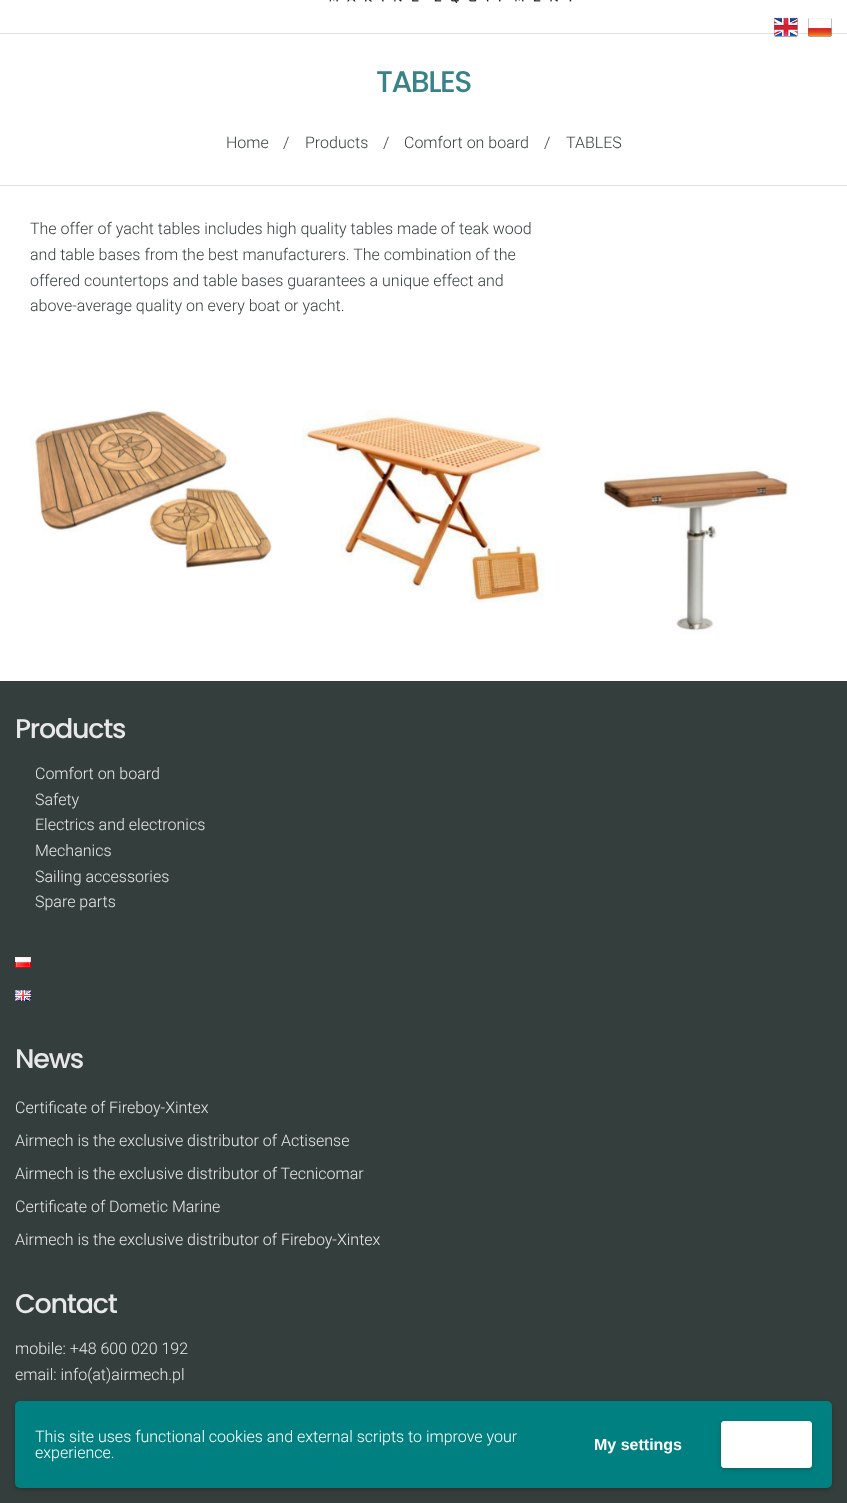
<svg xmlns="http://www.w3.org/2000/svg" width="847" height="1503">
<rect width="100%" height="100%" fill="#fff"/>
<rect y="33" width="847" height="1" fill="#dce1e5"/>
<image x="774" y="17" width="24" height="20" href="media/1.png"/>
<image x="808" y="18" width="24" height="19" href="media/2.png"/>
<rect y="185" width="847" height="1" fill="#dce1e5"/>
<image x="329" y="0" width="243" height="3" href="media/3.png"/>
<text x="376" y="92" style="font-family:Poppins;font-size:30px;font-weight:500;letter-spacing:-1.5px;fill:#388288">TABLES</text>
<text x="226" y="148" style="font-family:Roboto;font-size:16px;font-weight:300;fill:#343d3d">Home</text>
<text x="283" y="148" style="font-family:Roboto;font-size:16px;font-weight:300;fill:#343d3d">/</text>
<text x="305" y="148" style="font-family:Roboto;font-size:16px;font-weight:300;fill:#343d3d">Products</text>
<text x="383" y="148" style="font-family:Roboto;font-size:16px;font-weight:300;fill:#343d3d">/</text>
<text x="404" y="148" style="font-family:Roboto;font-size:16px;font-weight:300;fill:#343d3d">Comfort on board</text>
<text x="544" y="148" style="font-family:Roboto;font-size:16px;font-weight:300;fill:#343d3d">/</text>
<text x="566" y="148" style="font-family:Roboto;font-size:16px;font-weight:300;fill:#343d3d">TABLES</text>
<text x="30" y="234" style="font-family:Roboto;font-size:16px;font-weight:300;fill:#343d3d">The offer of yacht tables includes high quality tables made of teak wood</text>
<text x="30" y="260" style="font-family:Roboto;font-size:16px;font-weight:300;fill:#343d3d">and table bases from the best manufacturers. The combination of the</text>
<text x="30" y="286" style="font-family:Roboto;font-size:16px;font-weight:300;fill:#343d3d">offered countertops and table bases guarantees a unique effect and</text>
<text x="30" y="311" style="font-family:Roboto;font-size:16px;font-weight:300;fill:#343d3d">above-average quality on every boat or yacht.</text>
<image x="30" y="409" width="242" height="160" href="media/4.png"/>
<image x="302" y="409" width="243" height="194" href="media/5.png"/>
<image x="601" y="467" width="189" height="168" href="media/6.png"/>
<rect y="681" width="847" height="822" fill="#343e3d"/>
<text x="15" y="738" style="font-family:Poppins;font-size:27px;font-weight:500;letter-spacing:-1.25px;fill:#e8e8e8">Products</text>
<text x="35" y="779" style="font-family:Roboto;font-size:16px;font-weight:300;fill:#e8e8e8">Comfort on board</text>
<text x="35" y="805" style="font-family:Roboto;font-size:16px;font-weight:300;fill:#e8e8e8">Safety</text>
<text x="35" y="830" style="font-family:Roboto;font-size:16px;font-weight:300;fill:#e8e8e8">Electrics and electronics</text>
<text x="35" y="856" style="font-family:Roboto;font-size:16px;font-weight:300;fill:#e8e8e8">Mechanics</text>
<text x="35" y="882" style="font-family:Roboto;font-size:16px;font-weight:300;fill:#e8e8e8">Sailing accessories</text>
<text x="35" y="907" style="font-family:Roboto;font-size:16px;font-weight:300;fill:#e8e8e8">Spare parts</text>
<image x="15" y="957" width="16" height="11" href="media/7.png"/>
<image x="15" y="990" width="16" height="11" href="media/8.png"/>
<text x="15" y="1068" style="font-family:Poppins;font-size:27px;font-weight:500;letter-spacing:-1.25px;fill:#e8e8e8">News</text>
<text x="15" y="1113" style="font-family:Roboto;font-size:16px;font-weight:300;fill:#e8e8e8">Certificate of Fireboy-Xintex</text>
<text x="15" y="1146" style="font-family:Roboto;font-size:16px;font-weight:300;fill:#e8e8e8">Airmech is the exclusive distributor of Actisense</text>
<text x="15" y="1179" style="font-family:Roboto;font-size:16px;font-weight:300;fill:#e8e8e8">Airmech is the exclusive distributor of Tecnicomar</text>
<text x="15" y="1212" style="font-family:Roboto;font-size:16px;font-weight:300;fill:#e8e8e8">Certificate of Dometic Marine</text>
<text x="15" y="1245" style="font-family:Roboto;font-size:16px;font-weight:300;fill:#e8e8e8">Airmech is the exclusive distributor of Fireboy-Xintex</text>
<text x="15" y="1313" style="font-family:Poppins;font-size:27px;font-weight:500;letter-spacing:-1.25px;fill:#e8e8e8">Contact</text>
<text x="15" y="1354" style="font-family:Roboto;font-size:16px;font-weight:300;fill:#e8e8e8">mobile: +48 600 020 192</text>
<text x="15" y="1380" style="font-family:Roboto;font-size:16px;font-weight:300;fill:#e8e8e8">email: info(at)airmech.pl</text>
<rect x="15" y="1403" width="817" height="87" rx="5" fill="#00000033" filter="blur(2px)"/>
<rect x="15" y="1401" width="817" height="87" rx="5" fill="#008080"/>
<text x="35" y="1442" style="font-family:Roboto;font-size:16px;font-weight:300;fill:#fff">This site uses functional cookies and external scripts to improve your</text>
<text x="35" y="1458" style="font-family:Roboto;font-size:16px;font-weight:300;fill:#fff">experience.</text>
<text x="594" y="1450" style="font-family:Liberation Sans;font-size:16px;font-weight:bold;fill:#fff">My settings</text>
<rect x="721" y="1423" width="91" height="47" rx="3" fill="#00000033" filter="blur(2px)"/>
<rect x="721.5" y="1421.5" width="90" height="46" rx="2.5" fill="#fff" stroke="#fff"/>
</svg>
